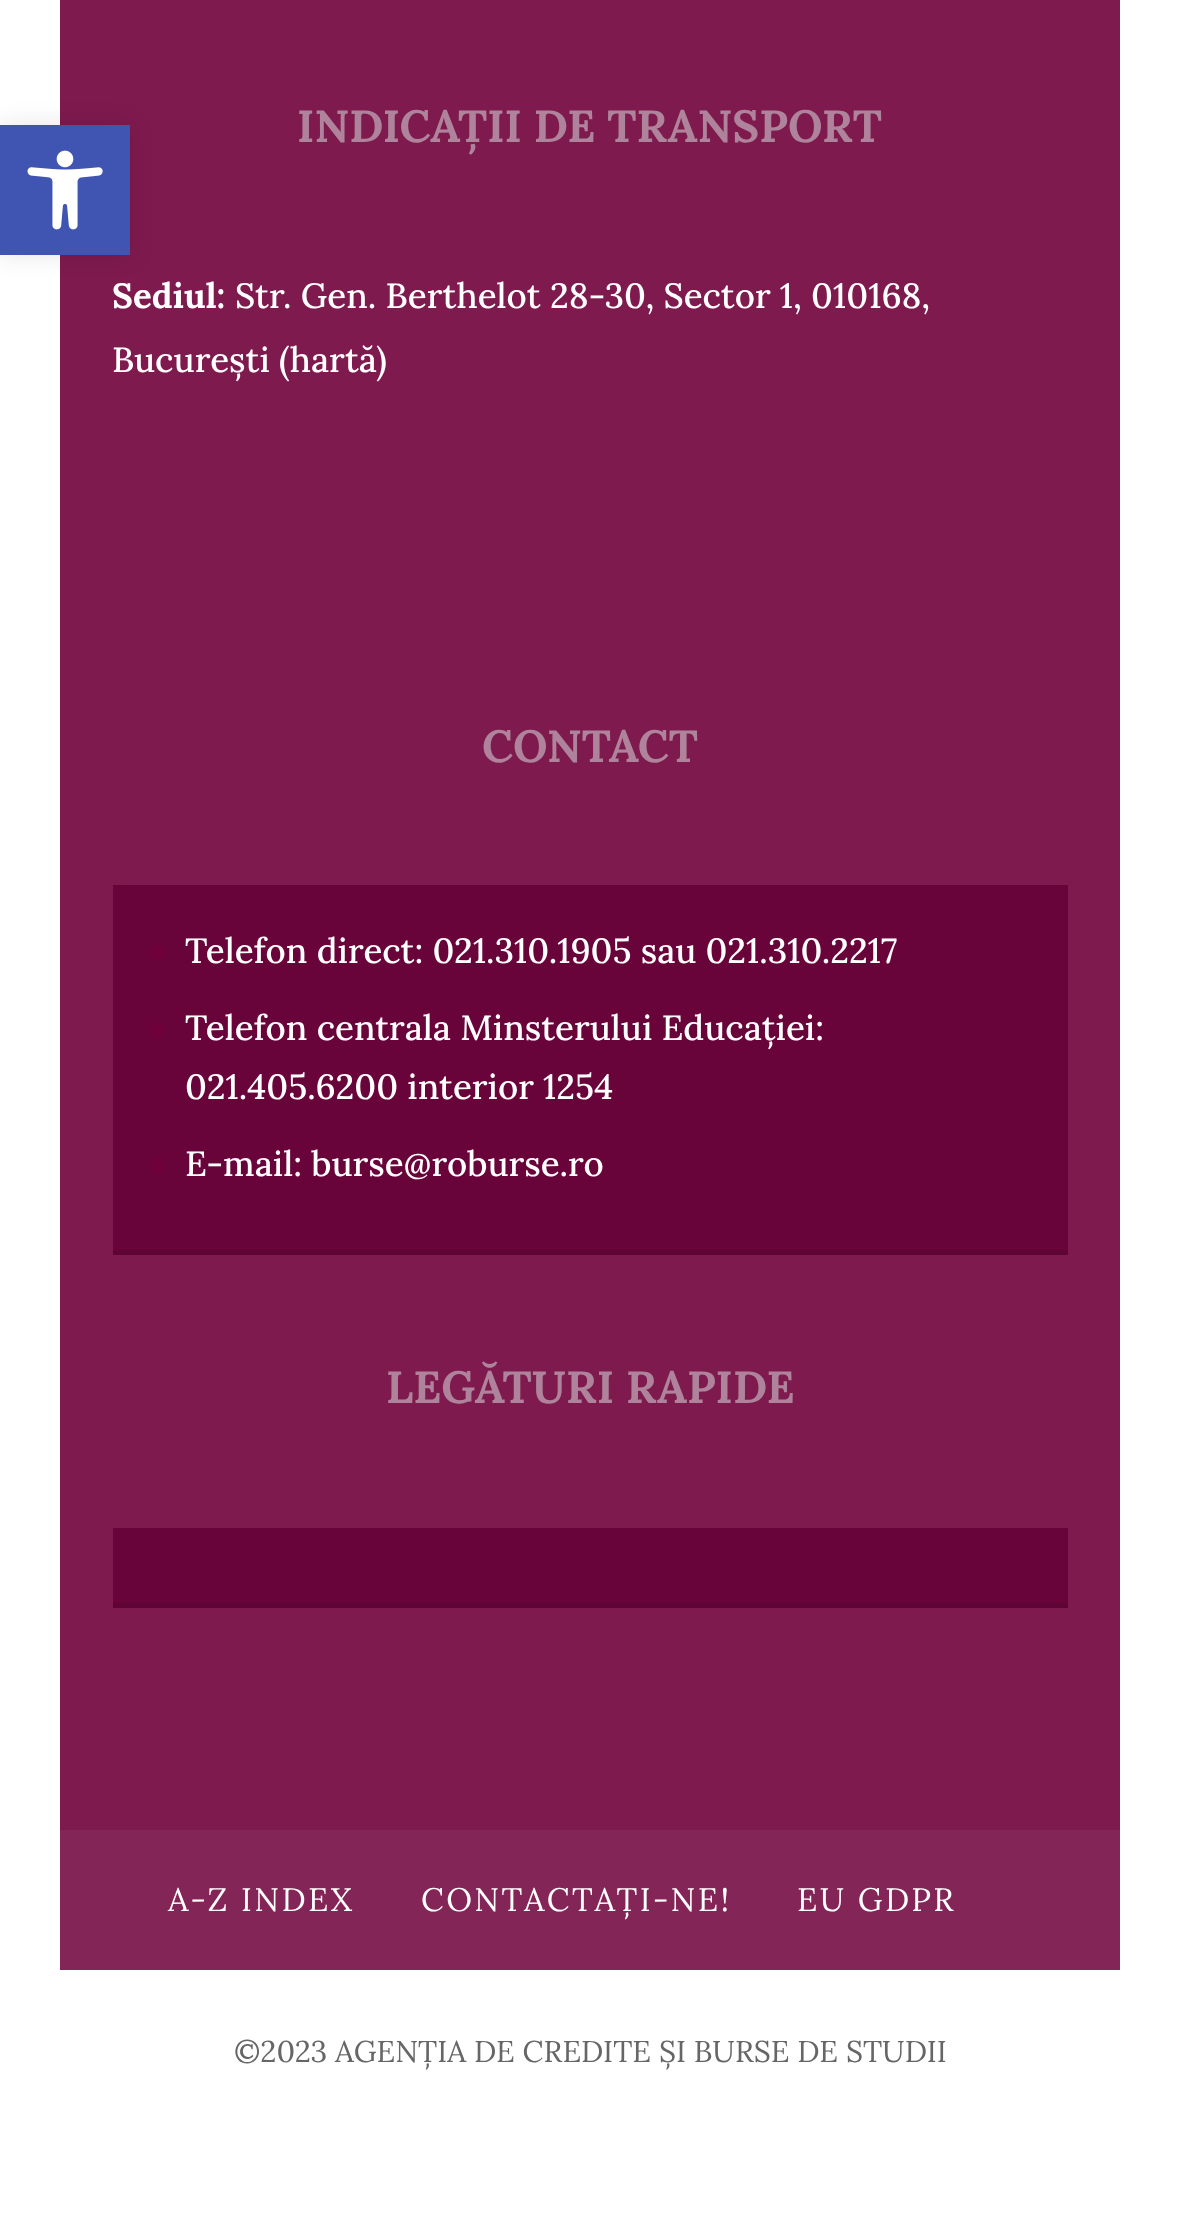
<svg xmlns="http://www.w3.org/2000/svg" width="1180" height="2219">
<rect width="100%" height="100%" fill="#fff"/>
<rect x="60" width="1060" height="1830" fill="#7e1a4e"/>
<rect y="125" width="130" height="130" fill="#0000001a" filter="blur(12.5px)"/>
<rect y="125" width="130" height="130" fill="#4054b2"/>
<image x="27" y="150" width="76" height="80" href="media/1.png"/>
<text x="297" y="142" style="font-family:Lora;font-size:45px;font-weight:bold;fill:#af839b">INDICAȚII DE TRANSPORT</text>
<text x="112" y="308" style="font-family:Lora;font-size:35px;font-weight:bold;fill:#fff">Sediul:</text>
<text x="235" y="308" style="font-family:Lora;font-size:35px;font-weight:500;fill:#fff">Str. Gen. Berthelot 28-30, Sector 1, 010168,</text>
<text x="112" y="372" style="font-family:Lora;font-size:35px;font-weight:500;fill:#fff">București (hartă)</text>
<text x="482" y="762" style="font-family:Lora;font-size:45px;font-weight:bold;fill:#af839b">CONTACT</text>
<rect x="113" y="885" width="955" height="365" fill="#69043a"/>
<rect x="113" y="1250" width="955" height="5" fill="#5f0535"/>
<circle cx="157.5" cy="952.5" r="7.5" fill="#70003a"/>
<text x="185" y="963" style="font-family:Lora;font-size:35px;font-weight:500;fill:#fff">Telefon direct: 021.310.1905 sau 021.310.2217</text>
<circle cx="157.5" cy="1030.5" r="7.5" fill="#70003a"/>
<text x="185" y="1040" style="font-family:Lora;font-size:35px;font-weight:500;fill:#fff">Telefon centrala Minsterului Educației:</text>
<text x="185" y="1099" style="font-family:Lora;font-size:35px;font-weight:500;fill:#fff">021.405.6200 interior 1254</text>
<circle cx="157.5" cy="1165.5" r="7.5" fill="#70003a"/>
<text x="185" y="1176" style="font-family:Lora;font-size:35px;font-weight:500;fill:#fff">E-mail: burse@roburse.ro</text>
<text x="386" y="1403" style="font-family:Lora;font-size:45px;font-weight:bold;fill:#af839b">LEGĂTURI RAPIDE</text>
<rect x="113" y="1528" width="955" height="75" fill="#69043a"/>
<rect x="113" y="1603" width="955" height="5" fill="#5f0535"/>
<rect x="60" y="1830" width="1060" height="140" fill="#842557"/>
<text x="168" y="1911" style="font-family:Lora;font-size:32.5px;letter-spacing:2.5px;fill:#fff">A-Z INDEX</text>
<text x="421" y="1911" style="font-family:Lora;font-size:32.5px;letter-spacing:2.5px;fill:#fff">CONTACTAȚI-NE!</text>
<text x="797" y="1911" style="font-family:Lora;font-size:32.5px;letter-spacing:2.5px;fill:#fff">EU GDPR</text>
<text x="234" y="2062" style="font-family:Lora;font-size:30px;fill:#666">©2023 AGENȚIA DE CREDITE ȘI BURSE DE STUDII</text>
</svg>
